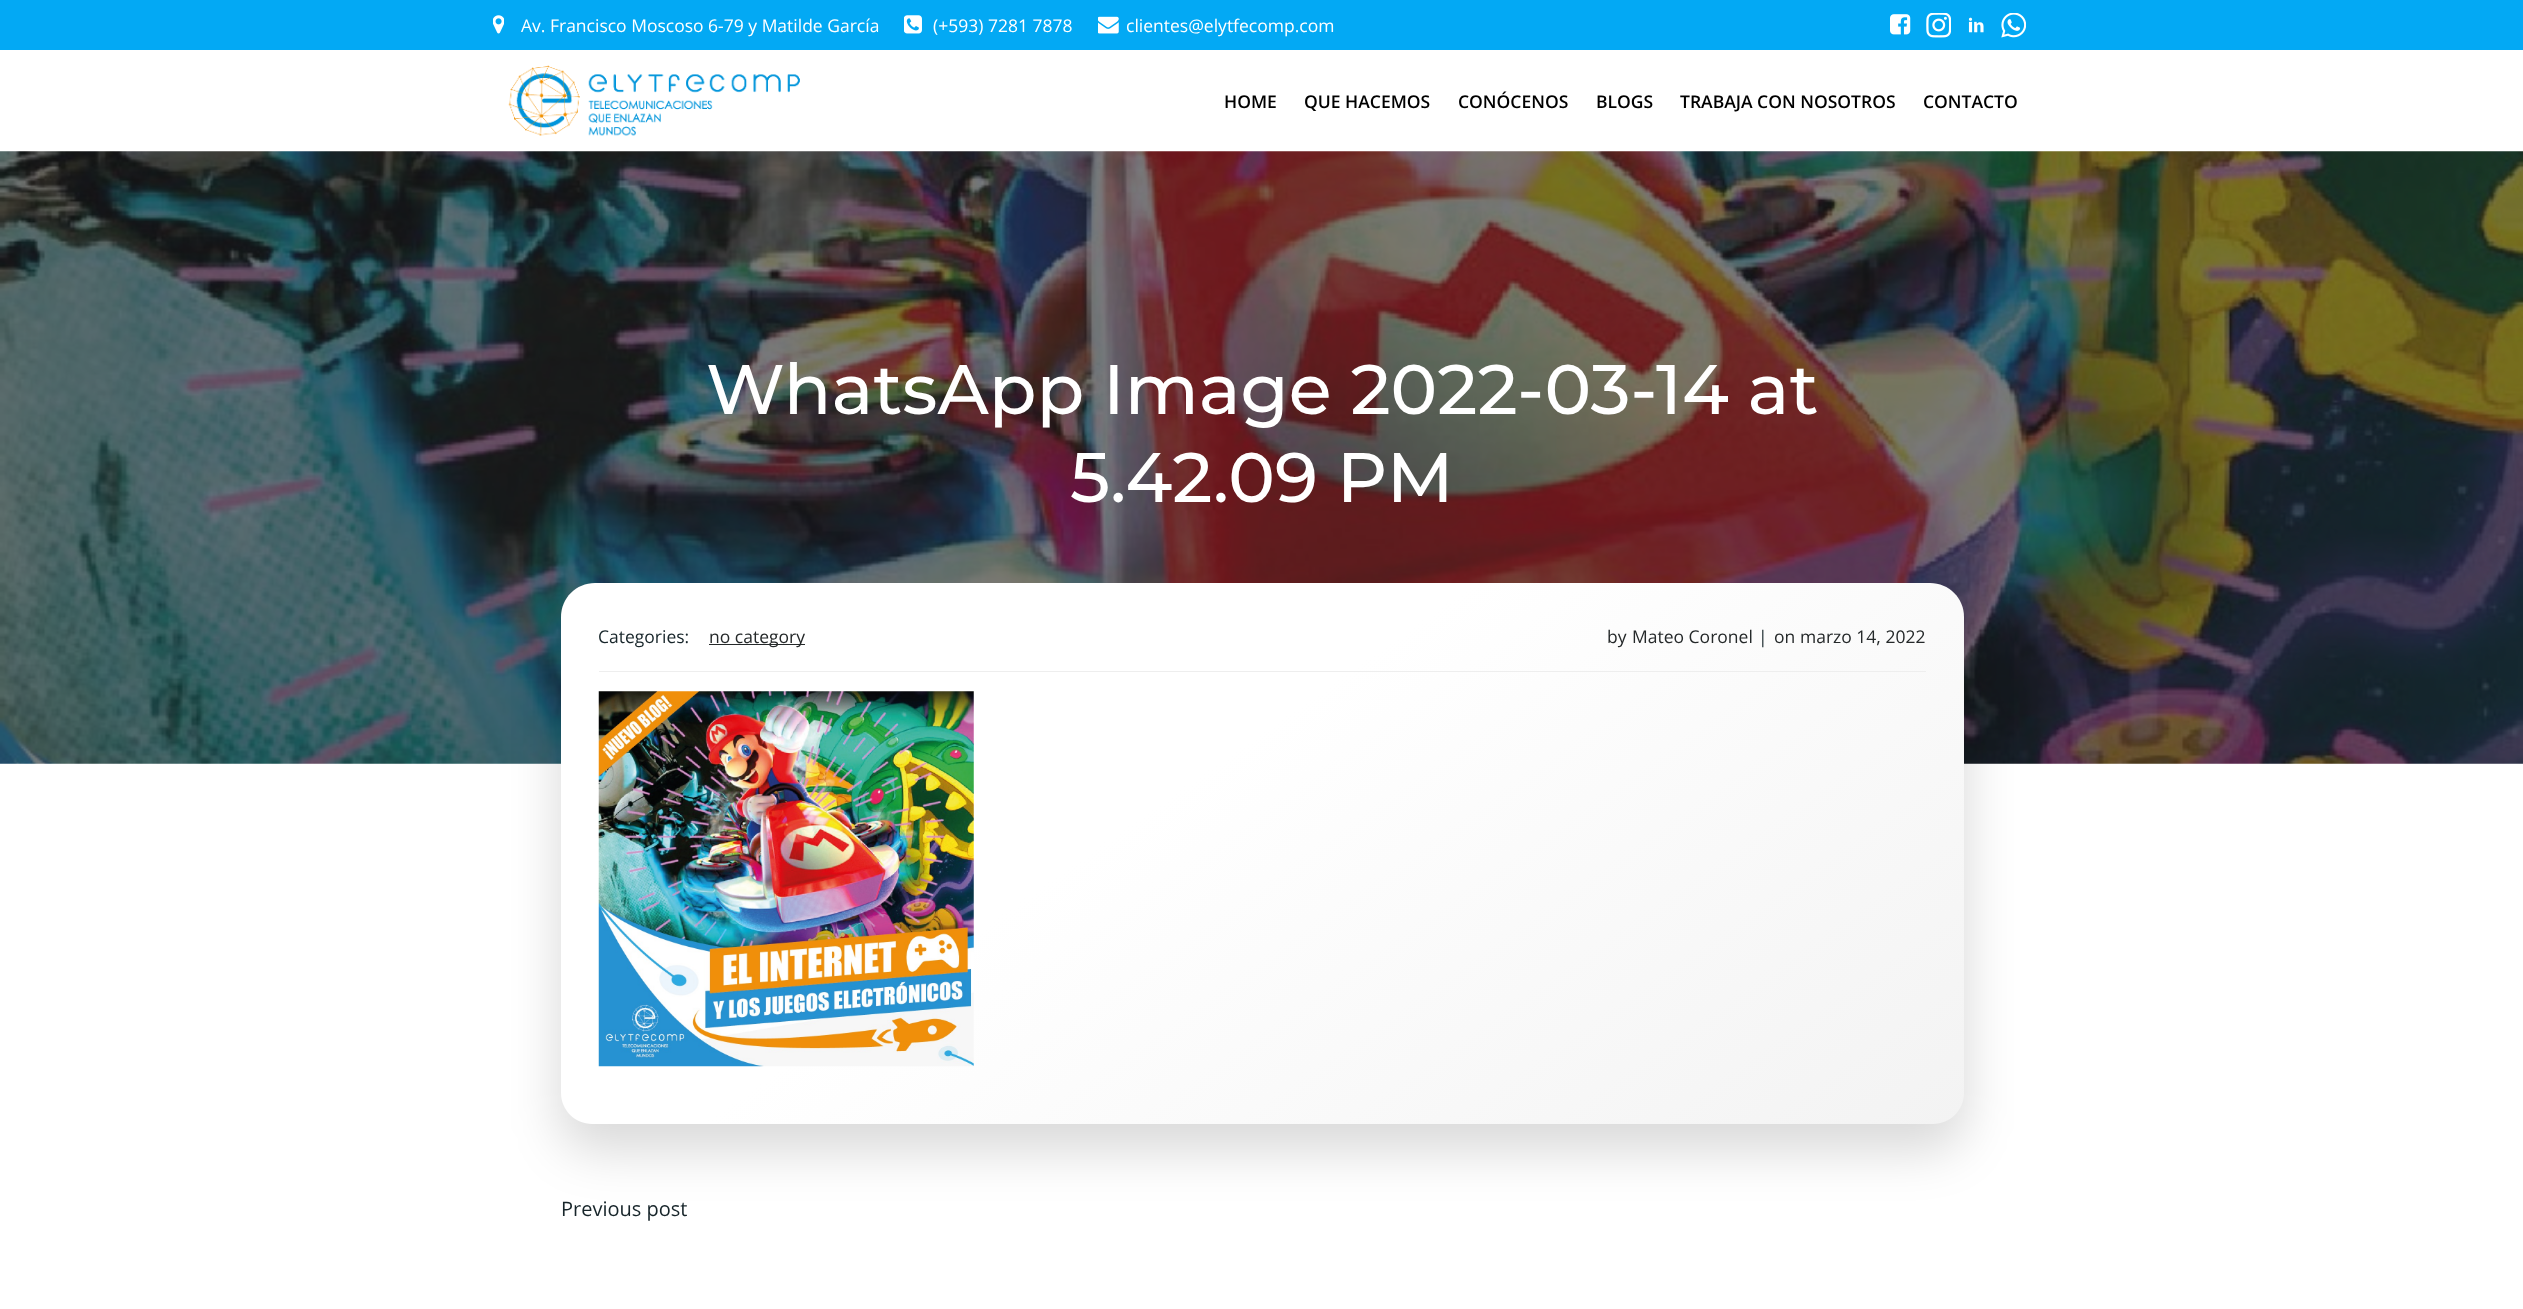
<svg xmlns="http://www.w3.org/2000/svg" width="2523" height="1309">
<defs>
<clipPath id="clip1"><rect x="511" y="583" width="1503" height="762"/></clipPath>
<linearGradient id="g1" gradientUnits="userSpaceOnUse" x1="905" y1="342" x2="1620" y2="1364"><stop offset="0.42" stop-color="#fff"/><stop offset="1" stop-color="#f3f3f3"/></linearGradient>
</defs>
<rect width="100%" height="100%" fill="#fff"/>
<rect width="2523" height="50" fill="#03a9f4"/>
<image x="493" y="15" width="11" height="19" href="media/1.png"/>
<text x="521" y="32" style="font-family:Open Sans;font-size:17.5px;fill:#fff">Av. Francisco Moscoso 6-79 y Matilde García</text>
<image x="904" y="15" width="18" height="19" href="media/2.png"/>
<text x="933" y="32" style="font-family:Open Sans;font-size:17.5px;fill:#fff">(+593) 7281 7878</text>
<image x="1098" y="16" width="21" height="18" href="media/3.png"/>
<text x="1126" y="32" style="font-family:Open Sans;font-size:17.5px;fill:#fff">clientes@elytfecomp.com</text>
<image x="1890" y="14" width="21" height="21" href="media/4.png"/>
<image x="1926" y="13" width="25" height="25" href="media/5.png"/>
<image x="1968" y="17" width="16" height="16" href="media/6.png"/>
<image x="2001" y="13" width="25" height="25" href="media/7.png"/>
<image x="508" y="65" width="292" height="71" href="media/8.png"/>
<text x="1224" y="108" style="font-family:Open Sans;font-size:17.5px;font-weight:600;fill:#000">HOME</text>
<text x="1304" y="108" style="font-family:Open Sans;font-size:17.5px;font-weight:600;fill:#000">QUE HACEMOS</text>
<text x="1458" y="108" style="font-family:Open Sans;font-size:17.5px;font-weight:600;fill:#000">CONÓCENOS</text>
<text x="1596" y="108" style="font-family:Open Sans;font-size:17.5px;font-weight:600;fill:#000">BLOGS</text>
<text x="1680" y="108" style="font-family:Open Sans;font-size:17.5px;font-weight:600;fill:#000">TRABAJA CON NOSOTROS</text>
<text x="1923" y="108" style="font-family:Open Sans;font-size:17.5px;font-weight:600;fill:#000">CONTACTO</text>
<image x="0" y="151" width="2523" height="613" href="media/9.png"/>
<text x="706" y="414" style="font-family:Montserrat;font-size:70px;font-weight:500;fill:#fff">WhatsApp Image 2022-03-14 at</text>
<text x="1070" y="502" style="font-family:Montserrat;font-size:70px;font-weight:500;fill:#fff">5.42.09 PM</text>
<g clip-path="url(#clip1)">
<rect x="559" y="605" width="1407" height="546" rx="36" fill="#00000026" filter="blur(25px)"/>
</g>
<path d="M595 583h1335c19 0 34 15 34 34v476c0 17-14 31-31 31h-1341c-17 0-31-14-31-31v-476c0-19 15-34 34-34z" fill="url(#g1)"/>
<rect x="599" y="671" width="1327" height="1" fill="#eee"/>
<text x="598" y="643" style="font-family:Open Sans;font-size:17.5px;fill:#17252a">Categories:</text>
<rect x="709" y="644" width="96" height="1" fill="#25292a"/>
<text x="709" y="643" style="font-family:Open Sans;font-size:17.5px;fill:#25292a">no category</text>
<text x="1607" y="643" style="font-family:Open Sans;font-size:17.5px;fill:#25292a">by</text>
<text x="1632" y="643" style="font-family:Open Sans;font-size:17.5px;fill:#25292a">Mateo Coronel</text>
<text x="1758" y="643" style="font-family:Open Sans;font-size:17.5px;fill:#17252a">|</text>
<text x="1774" y="643" style="font-family:Open Sans;font-size:17.5px;fill:#25292a">on</text>
<text x="1800" y="643" style="font-family:Open Sans;font-size:17.5px;fill:#25292a">marzo 14, 2022</text>
<image x="598" y="691" width="376" height="376" href="media/10.png"/>
<text x="561" y="1216" style="font-family:Open Sans;font-size:20px;fill:#17252a">Previous post</text>
</svg>
